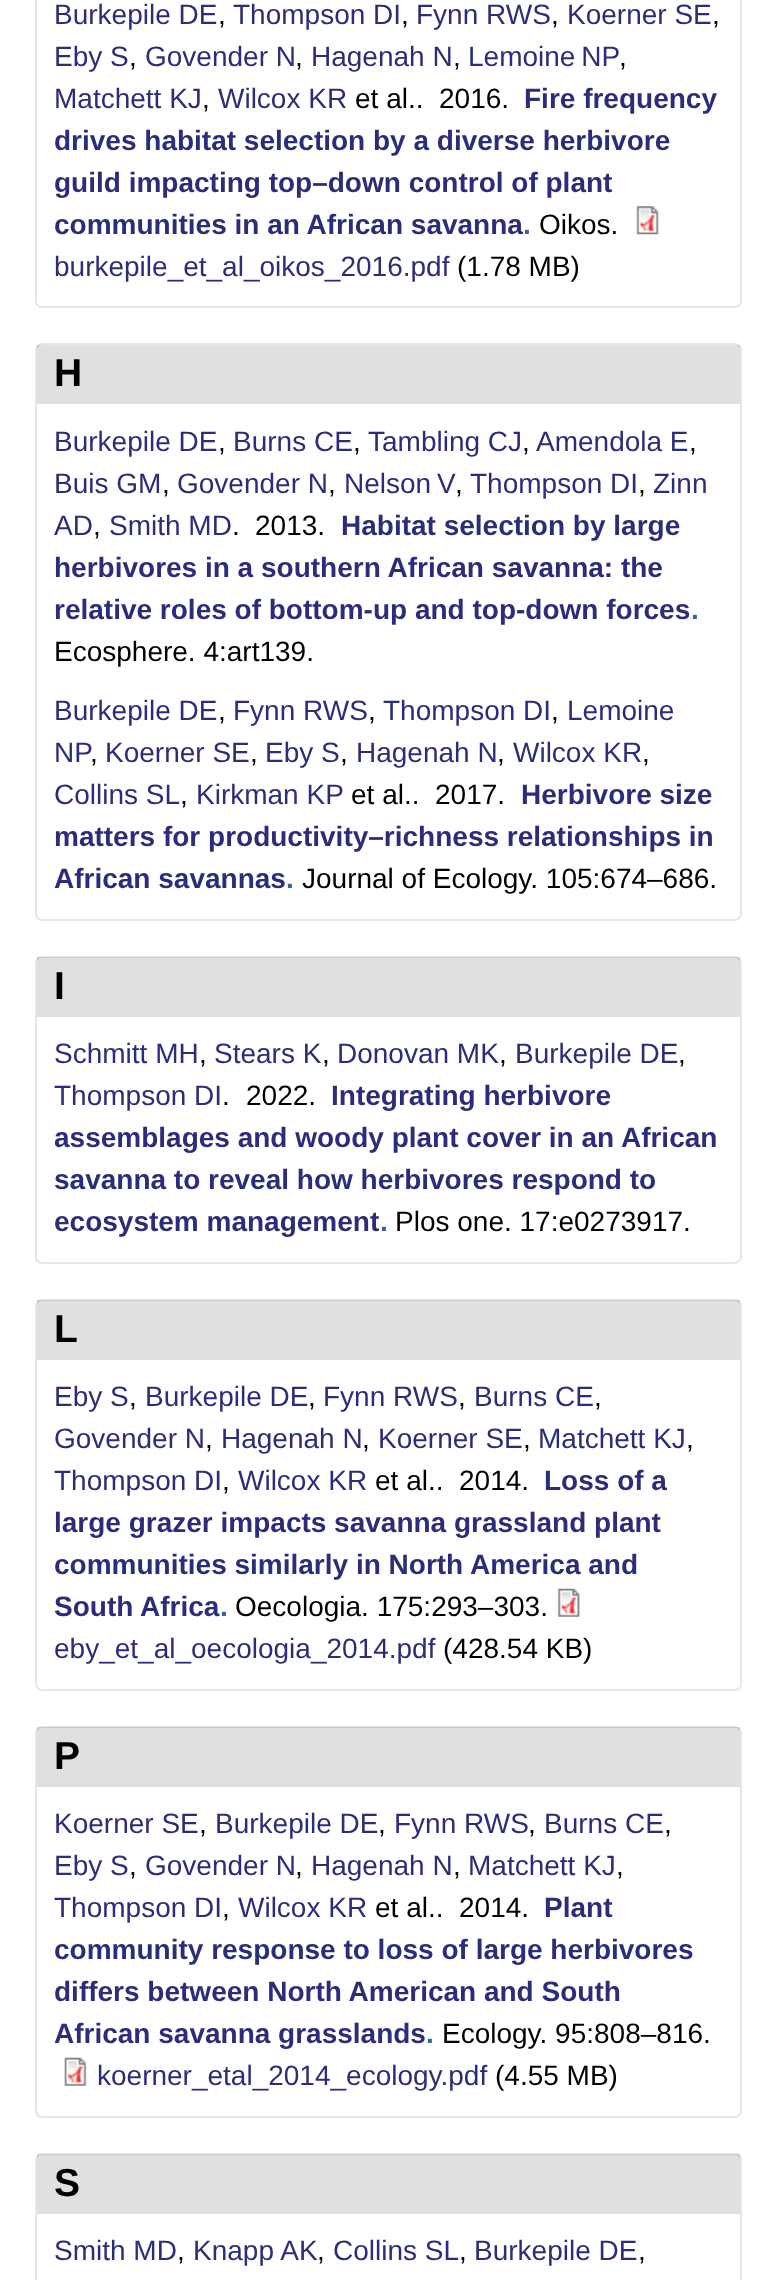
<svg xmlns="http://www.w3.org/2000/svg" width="777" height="2280">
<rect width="100%" height="100%" fill="#fff"/>
<rect x="36" y="-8" width="705" height="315" rx="6" fill="none" stroke="#e6e6e6" stroke-width="2"/>
<text x="54" y="24" style="font-family:Liberation Sans;font-size:28px;fill:#2c2d7a">Burkepile DE</text>
<text x="218" y="24" style="font-family:Liberation Sans;font-size:28px;fill:#000">,</text>
<text x="233" y="24" style="font-family:Liberation Sans;font-size:28px;fill:#2c2d7a">Thompson DI</text>
<text x="401" y="24" style="font-family:Liberation Sans;font-size:28px;fill:#000">,</text>
<text x="416" y="24" style="font-family:Liberation Sans;font-size:28px;fill:#2c2d7a">Fynn RWS</text>
<text x="551" y="24" style="font-family:Liberation Sans;font-size:28px;fill:#000">,</text>
<text x="567" y="24" style="font-family:Liberation Sans;font-size:28px;fill:#2c2d7a">Koerner SE</text>
<text x="712" y="24" style="font-family:Liberation Sans;font-size:28px;fill:#000">,</text>
<text x="54" y="66" style="font-family:Liberation Sans;font-size:28px;fill:#2c2d7a">Eby S</text>
<text x="129" y="66" style="font-family:Liberation Sans;font-size:28px;fill:#000">,</text>
<text x="145" y="66" style="font-family:Liberation Sans;font-size:28px;fill:#2c2d7a">Govender N</text>
<text x="295" y="66" style="font-family:Liberation Sans;font-size:28px;fill:#000">,</text>
<text x="311" y="66" style="font-family:Liberation Sans;font-size:28px;fill:#2c2d7a">Hagenah N</text>
<text x="453" y="66" style="font-family:Liberation Sans;font-size:28px;fill:#000">,</text>
<text x="468" y="66" word-spacing="-2" style="font-family:Liberation Sans;font-size:28px;fill:#2c2d7a">Lemoine NP</text>
<text x="619" y="66" style="font-family:Liberation Sans;font-size:28px;fill:#000">,</text>
<text x="54" y="108" style="font-family:Liberation Sans;font-size:28px;fill:#2c2d7a">Matchett KJ</text>
<text x="202" y="108" style="font-family:Liberation Sans;font-size:28px;fill:#000">,</text>
<text x="218" y="108" style="font-family:Liberation Sans;font-size:28px;fill:#2c2d7a">Wilcox KR</text>
<text x="355" y="108" style="font-family:Liberation Sans;font-size:28px;fill:#000">et al..</text>
<text x="439" y="108" style="font-family:Liberation Sans;font-size:28px;fill:#000">2016.</text>
<text x="524" y="108" style="font-family:Liberation Sans;font-size:28px;font-weight:bold;fill:#2c2d7a">Fire frequency</text>
<text x="54" y="150" style="font-family:Liberation Sans;font-size:28px;font-weight:bold;fill:#2c2d7a">drives habitat selection by a diverse herbivore</text>
<text x="54" y="192" style="font-family:Liberation Sans;font-size:28px;font-weight:bold;fill:#2c2d7a">guild impacting top–down control of plant</text>
<text x="54" y="234" style="font-family:Liberation Sans;font-size:28px;font-weight:bold;fill:#2c2d7a">communities in an African savanna</text>
<text x="523" y="234" style="font-family:Liberation Sans;font-size:28px;font-weight:bold;fill:#336599">.</text>
<text x="539" y="234" style="font-family:Liberation Sans;font-size:28px;fill:#000">Oikos.</text>
<image x="636" y="206" width="23" height="29" href="media/1.png"/>
<text x="54" y="276" style="font-family:Liberation Sans;font-size:28px;fill:#2c2d7a">burkepile_et_al_oikos_2016.pdf</text>
<text x="457" y="276" style="font-family:Liberation Sans;font-size:28px;fill:#000">(1.78 MB)</text>
<rect x="36" y="344" width="705" height="576" rx="6" fill="none" stroke="#e6e6e6" stroke-width="2"/>
<rect x="37" y="345" width="703" height="59" fill="#0000001f"/>
<text x="54" y="386" style="font-family:Liberation Sans;font-size:39px;font-weight:bold;fill:#000">H</text>
<text x="54" y="451" style="font-family:Liberation Sans;font-size:28px;fill:#2c2d7a">Burkepile DE</text>
<text x="218" y="451" style="font-family:Liberation Sans;font-size:28px;fill:#000">,</text>
<text x="233" y="451" style="font-family:Liberation Sans;font-size:28px;fill:#2c2d7a">Burns CE</text>
<text x="353" y="451" style="font-family:Liberation Sans;font-size:28px;fill:#000">,</text>
<text x="368" y="451" style="font-family:Liberation Sans;font-size:28px;fill:#2c2d7a">Tambling CJ</text>
<text x="522" y="451" style="font-family:Liberation Sans;font-size:28px;fill:#000">,</text>
<text x="536" y="451" style="font-family:Liberation Sans;font-size:28px;fill:#2c2d7a">Amendola E</text>
<text x="689" y="451" style="font-family:Liberation Sans;font-size:28px;fill:#000">,</text>
<text x="54" y="493" style="font-family:Liberation Sans;font-size:28px;fill:#2c2d7a">Buis GM</text>
<text x="162" y="493" style="font-family:Liberation Sans;font-size:28px;fill:#000">,</text>
<text x="177" y="493" style="font-family:Liberation Sans;font-size:28px;fill:#2c2d7a">Govender N</text>
<text x="328" y="493" style="font-family:Liberation Sans;font-size:28px;fill:#000">,</text>
<text x="344" y="493" word-spacing="-2" style="font-family:Liberation Sans;font-size:28px;fill:#2c2d7a">Nelson V</text>
<text x="455" y="493" style="font-family:Liberation Sans;font-size:28px;fill:#000">,</text>
<text x="470" y="493" style="font-family:Liberation Sans;font-size:28px;fill:#2c2d7a">Thompson DI</text>
<text x="638" y="493" style="font-family:Liberation Sans;font-size:28px;fill:#000">,</text>
<text x="653" y="493" style="font-family:Liberation Sans;font-size:28px;fill:#2c2d7a">Zinn</text>
<text x="54" y="535" style="font-family:Liberation Sans;font-size:28px;fill:#2c2d7a">AD</text>
<text x="93" y="535" style="font-family:Liberation Sans;font-size:28px;fill:#000">,</text>
<text x="109" y="535" style="font-family:Liberation Sans;font-size:28px;fill:#2c2d7a">Smith MD</text>
<text x="232" y="535" style="font-family:Liberation Sans;font-size:28px;fill:#000">.</text>
<text x="255" y="535" style="font-family:Liberation Sans;font-size:28px;fill:#000">2013.</text>
<text x="341" y="535" style="font-family:Liberation Sans;font-size:28px;font-weight:bold;fill:#2c2d7a">Habitat selection by large</text>
<text x="54" y="577" style="font-family:Liberation Sans;font-size:28px;font-weight:bold;fill:#2c2d7a">herbivores in a southern African savanna: the</text>
<text x="54" y="619" style="font-family:Liberation Sans;font-size:28px;font-weight:bold;fill:#2c2d7a">relative roles of bottom-up and top-down forces</text>
<text x="691" y="619" style="font-family:Liberation Sans;font-size:28px;font-weight:bold;fill:#336599">.</text>
<text x="54" y="661" style="font-family:Liberation Sans;font-size:28px;fill:#000">Ecosphere. 4:art139.</text>
<text x="54" y="720" style="font-family:Liberation Sans;font-size:28px;fill:#2c2d7a">Burkepile DE</text>
<text x="218" y="720" style="font-family:Liberation Sans;font-size:28px;fill:#000">,</text>
<text x="233" y="720" style="font-family:Liberation Sans;font-size:28px;fill:#2c2d7a">Fynn RWS</text>
<text x="368" y="720" style="font-family:Liberation Sans;font-size:28px;fill:#000">,</text>
<text x="383" y="720" style="font-family:Liberation Sans;font-size:28px;fill:#2c2d7a">Thompson DI</text>
<text x="551" y="720" style="font-family:Liberation Sans;font-size:28px;fill:#000">,</text>
<text x="567" y="720" style="font-family:Liberation Sans;font-size:28px;fill:#2c2d7a">Lemoine</text>
<text x="54" y="762" style="font-family:Liberation Sans;font-size:28px;fill:#2c2d7a">NP</text>
<text x="90" y="762" style="font-family:Liberation Sans;font-size:28px;fill:#000">,</text>
<text x="105" y="762" style="font-family:Liberation Sans;font-size:28px;fill:#2c2d7a">Koerner SE</text>
<text x="250" y="762" style="font-family:Liberation Sans;font-size:28px;fill:#000">,</text>
<text x="265" y="762" style="font-family:Liberation Sans;font-size:28px;fill:#2c2d7a">Eby S</text>
<text x="340" y="762" style="font-family:Liberation Sans;font-size:28px;fill:#000">,</text>
<text x="356" y="762" style="font-family:Liberation Sans;font-size:28px;fill:#2c2d7a">Hagenah N</text>
<text x="497" y="762" style="font-family:Liberation Sans;font-size:28px;fill:#000">,</text>
<text x="513" y="762" style="font-family:Liberation Sans;font-size:28px;fill:#2c2d7a">Wilcox KR</text>
<text x="642" y="762" style="font-family:Liberation Sans;font-size:28px;fill:#000">,</text>
<text x="54" y="804" style="font-family:Liberation Sans;font-size:28px;fill:#2c2d7a">Collins SL</text>
<text x="180" y="804" style="font-family:Liberation Sans;font-size:28px;fill:#000">,</text>
<text x="196" y="804" style="font-family:Liberation Sans;font-size:28px;fill:#2c2d7a">Kirkman KP</text>
<text x="351" y="804" style="font-family:Liberation Sans;font-size:28px;fill:#000">et al..</text>
<text x="435" y="804" style="font-family:Liberation Sans;font-size:28px;fill:#000">2017.</text>
<text x="521" y="804" style="font-family:Liberation Sans;font-size:28px;font-weight:bold;fill:#2c2d7a">Herbivore size</text>
<text x="54" y="846" style="font-family:Liberation Sans;font-size:28px;font-weight:bold;fill:#2c2d7a">matters for productivity–richness relationships in</text>
<text x="54" y="888" style="font-family:Liberation Sans;font-size:28px;font-weight:bold;fill:#2c2d7a">African savannas</text>
<text x="286" y="888" style="font-family:Liberation Sans;font-size:28px;font-weight:bold;fill:#336599">.</text>
<text x="302" y="888" style="font-family:Liberation Sans;font-size:28px;fill:#000">Journal of Ecology. 105:674–686.</text>
<rect x="36" y="957" width="705" height="306" rx="6" fill="none" stroke="#e6e6e6" stroke-width="2"/>
<rect x="37" y="957" width="703" height="60" fill="#0000001f"/>
<text x="54" y="999" style="font-family:Liberation Sans;font-size:39px;font-weight:bold;fill:#000">I</text>
<text x="54" y="1063" style="font-family:Liberation Sans;font-size:28px;fill:#2c2d7a">Schmitt MH</text>
<text x="199" y="1063" style="font-family:Liberation Sans;font-size:28px;fill:#000">,</text>
<text x="214" y="1063" style="font-family:Liberation Sans;font-size:28px;fill:#2c2d7a">Stears K</text>
<text x="322" y="1063" style="font-family:Liberation Sans;font-size:28px;fill:#000">,</text>
<text x="337" y="1063" style="font-family:Liberation Sans;font-size:28px;fill:#2c2d7a">Donovan MK</text>
<text x="499" y="1063" style="font-family:Liberation Sans;font-size:28px;fill:#000">,</text>
<text x="515" y="1063" style="font-family:Liberation Sans;font-size:28px;fill:#2c2d7a">Burkepile DE</text>
<text x="678" y="1063" style="font-family:Liberation Sans;font-size:28px;fill:#000">,</text>
<text x="54" y="1105" style="font-family:Liberation Sans;font-size:28px;fill:#2c2d7a">Thompson DI</text>
<text x="222" y="1105" style="font-family:Liberation Sans;font-size:28px;fill:#000">.</text>
<text x="246" y="1105" style="font-family:Liberation Sans;font-size:28px;fill:#000">2022.</text>
<text x="331" y="1105" style="font-family:Liberation Sans;font-size:28px;font-weight:bold;fill:#2c2d7a">Integrating herbivore</text>
<text x="54" y="1147" style="font-family:Liberation Sans;font-size:28px;font-weight:bold;fill:#2c2d7a">assemblages and woody plant cover in an African</text>
<text x="54" y="1189" style="font-family:Liberation Sans;font-size:28px;font-weight:bold;fill:#2c2d7a">savanna to reveal how herbivores respond to</text>
<text x="54" y="1231" style="font-family:Liberation Sans;font-size:28px;font-weight:bold;fill:#2c2d7a">ecosystem management</text>
<text x="380" y="1231" style="font-family:Liberation Sans;font-size:28px;font-weight:bold;fill:#336599">.</text>
<text x="395" y="1231" style="font-family:Liberation Sans;font-size:28px;fill:#000">Plos one. 17:e0273917.</text>
<rect x="36" y="1300" width="705" height="390" rx="6" fill="none" stroke="#e6e6e6" stroke-width="2"/>
<rect x="37" y="1300" width="703" height="60" fill="#0000001f"/>
<text x="54" y="1342" style="font-family:Liberation Sans;font-size:39px;font-weight:bold;fill:#000">L</text>
<text x="54" y="1406" style="font-family:Liberation Sans;font-size:28px;fill:#2c2d7a">Eby S</text>
<text x="129" y="1406" style="font-family:Liberation Sans;font-size:28px;fill:#000">,</text>
<text x="145" y="1406" style="font-family:Liberation Sans;font-size:28px;fill:#2c2d7a">Burkepile DE</text>
<text x="308" y="1406" style="font-family:Liberation Sans;font-size:28px;fill:#000">,</text>
<text x="323" y="1406" style="font-family:Liberation Sans;font-size:28px;fill:#2c2d7a">Fynn RWS</text>
<text x="458" y="1406" style="font-family:Liberation Sans;font-size:28px;fill:#000">,</text>
<text x="474" y="1406" style="font-family:Liberation Sans;font-size:28px;fill:#2c2d7a">Burns CE</text>
<text x="594" y="1406" style="font-family:Liberation Sans;font-size:28px;fill:#000">,</text>
<text x="54" y="1448" style="font-family:Liberation Sans;font-size:28px;fill:#2c2d7a">Govender N</text>
<text x="205" y="1448" style="font-family:Liberation Sans;font-size:28px;fill:#000">,</text>
<text x="221" y="1448" style="font-family:Liberation Sans;font-size:28px;fill:#2c2d7a">Hagenah N</text>
<text x="362" y="1448" style="font-family:Liberation Sans;font-size:28px;fill:#000">,</text>
<text x="378" y="1448" style="font-family:Liberation Sans;font-size:28px;fill:#2c2d7a">Koerner SE</text>
<text x="523" y="1448" style="font-family:Liberation Sans;font-size:28px;fill:#000">,</text>
<text x="538" y="1448" style="font-family:Liberation Sans;font-size:28px;fill:#2c2d7a">Matchett KJ</text>
<text x="686" y="1448" style="font-family:Liberation Sans;font-size:28px;fill:#000">,</text>
<text x="54" y="1490" style="font-family:Liberation Sans;font-size:28px;fill:#2c2d7a">Thompson DI</text>
<text x="222" y="1490" style="font-family:Liberation Sans;font-size:28px;fill:#000">,</text>
<text x="238" y="1490" style="font-family:Liberation Sans;font-size:28px;fill:#2c2d7a">Wilcox KR</text>
<text x="375" y="1490" style="font-family:Liberation Sans;font-size:28px;fill:#000">et al..</text>
<text x="459" y="1490" style="font-family:Liberation Sans;font-size:28px;fill:#000">2014.</text>
<text x="544" y="1490" style="font-family:Liberation Sans;font-size:28px;font-weight:bold;fill:#2c2d7a">Loss of a</text>
<text x="54" y="1532" style="font-family:Liberation Sans;font-size:28px;font-weight:bold;fill:#2c2d7a">large grazer impacts savanna grassland plant</text>
<text x="54" y="1574" style="font-family:Liberation Sans;font-size:28px;font-weight:bold;fill:#2c2d7a">communities similarly in North America and</text>
<text x="54" y="1616" style="font-family:Liberation Sans;font-size:28px;font-weight:bold;fill:#2c2d7a">South Africa</text>
<text x="220" y="1616" style="font-family:Liberation Sans;font-size:28px;font-weight:bold;fill:#336599">.</text>
<text x="235" y="1616" style="font-family:Liberation Sans;font-size:28px;fill:#000">Oecologia. 175:293–303.</text>
<image x="557" y="1588" width="23" height="29" href="media/2.png"/>
<text x="54" y="1658" style="font-family:Liberation Sans;font-size:28px;fill:#2c2d7a">eby_et_al_oecologia_2014.pdf</text>
<text x="443" y="1658" style="font-family:Liberation Sans;font-size:28px;fill:#000">(428.54 KB)</text>
<rect x="36" y="1727" width="705" height="390" rx="6" fill="none" stroke="#e6e6e6" stroke-width="2"/>
<rect x="37" y="1727" width="703" height="60" fill="#0000001f"/>
<text x="54" y="1769" style="font-family:Liberation Sans;font-size:39px;font-weight:bold;fill:#000">P</text>
<text x="54" y="1833" style="font-family:Liberation Sans;font-size:28px;fill:#2c2d7a">Koerner SE</text>
<text x="199" y="1833" style="font-family:Liberation Sans;font-size:28px;fill:#000">,</text>
<text x="215" y="1833" style="font-family:Liberation Sans;font-size:28px;fill:#2c2d7a">Burkepile DE</text>
<text x="378" y="1833" style="font-family:Liberation Sans;font-size:28px;fill:#000">,</text>
<text x="394" y="1833" style="font-family:Liberation Sans;font-size:28px;fill:#2c2d7a">Fynn RWS</text>
<text x="528" y="1833" style="font-family:Liberation Sans;font-size:28px;fill:#000">,</text>
<text x="544" y="1833" style="font-family:Liberation Sans;font-size:28px;fill:#2c2d7a">Burns CE</text>
<text x="664" y="1833" style="font-family:Liberation Sans;font-size:28px;fill:#000">,</text>
<text x="54" y="1875" style="font-family:Liberation Sans;font-size:28px;fill:#2c2d7a">Eby S</text>
<text x="129" y="1875" style="font-family:Liberation Sans;font-size:28px;fill:#000">,</text>
<text x="145" y="1875" style="font-family:Liberation Sans;font-size:28px;fill:#2c2d7a">Govender N</text>
<text x="295" y="1875" style="font-family:Liberation Sans;font-size:28px;fill:#000">,</text>
<text x="311" y="1875" style="font-family:Liberation Sans;font-size:28px;fill:#2c2d7a">Hagenah N</text>
<text x="453" y="1875" style="font-family:Liberation Sans;font-size:28px;fill:#000">,</text>
<text x="468" y="1875" style="font-family:Liberation Sans;font-size:28px;fill:#2c2d7a">Matchett KJ</text>
<text x="616" y="1875" style="font-family:Liberation Sans;font-size:28px;fill:#000">,</text>
<text x="54" y="1917" style="font-family:Liberation Sans;font-size:28px;fill:#2c2d7a">Thompson DI</text>
<text x="222" y="1917" style="font-family:Liberation Sans;font-size:28px;fill:#000">,</text>
<text x="238" y="1917" style="font-family:Liberation Sans;font-size:28px;fill:#2c2d7a">Wilcox KR</text>
<text x="375" y="1917" style="font-family:Liberation Sans;font-size:28px;fill:#000">et al..</text>
<text x="459" y="1917" style="font-family:Liberation Sans;font-size:28px;fill:#000">2014.</text>
<text x="544" y="1917" style="font-family:Liberation Sans;font-size:28px;font-weight:bold;fill:#2c2d7a">Plant</text>
<text x="54" y="1959" style="font-family:Liberation Sans;font-size:28px;font-weight:bold;fill:#2c2d7a">community response to loss of large herbivores</text>
<text x="54" y="2001" style="font-family:Liberation Sans;font-size:28px;font-weight:bold;fill:#2c2d7a">differs between North American and South</text>
<text x="54" y="2043" style="font-family:Liberation Sans;font-size:28px;font-weight:bold;fill:#2c2d7a">African savanna grasslands</text>
<text x="426" y="2043" style="font-family:Liberation Sans;font-size:28px;font-weight:bold;fill:#336599">.</text>
<text x="442" y="2043" style="font-family:Liberation Sans;font-size:28px;fill:#000">Ecology. 95:808–816.</text>
<image x="64" y="2057" width="23" height="29" href="media/3.png"/>
<text x="97" y="2085" style="font-family:Liberation Sans;font-size:28px;fill:#2c2d7a">koerner_etal_2014_ecology.pdf</text>
<text x="495" y="2085" style="font-family:Liberation Sans;font-size:28px;fill:#000">(4.55 MB)</text>
<rect x="36" y="2154" width="705" height="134" rx="6" fill="none" stroke="#e6e6e6" stroke-width="2"/>
<rect x="37" y="2154" width="703" height="60" fill="#0000001f"/>
<text x="54" y="2196" style="font-family:Liberation Sans;font-size:39px;font-weight:bold;fill:#000">S</text>
<text x="54" y="2260" style="font-family:Liberation Sans;font-size:28px;fill:#2c2d7a">Smith MD</text>
<text x="177" y="2260" style="font-family:Liberation Sans;font-size:28px;fill:#000">,</text>
<text x="193" y="2260" style="font-family:Liberation Sans;font-size:28px;fill:#2c2d7a">Knapp AK</text>
<text x="317" y="2260" style="font-family:Liberation Sans;font-size:28px;fill:#000">,</text>
<text x="333" y="2260" style="font-family:Liberation Sans;font-size:28px;fill:#2c2d7a">Collins SL</text>
<text x="459" y="2260" style="font-family:Liberation Sans;font-size:28px;fill:#000">,</text>
<text x="474" y="2260" style="font-family:Liberation Sans;font-size:28px;fill:#2c2d7a">Burkepile DE</text>
<text x="638" y="2260" style="font-family:Liberation Sans;font-size:28px;fill:#000">,</text>
</svg>
